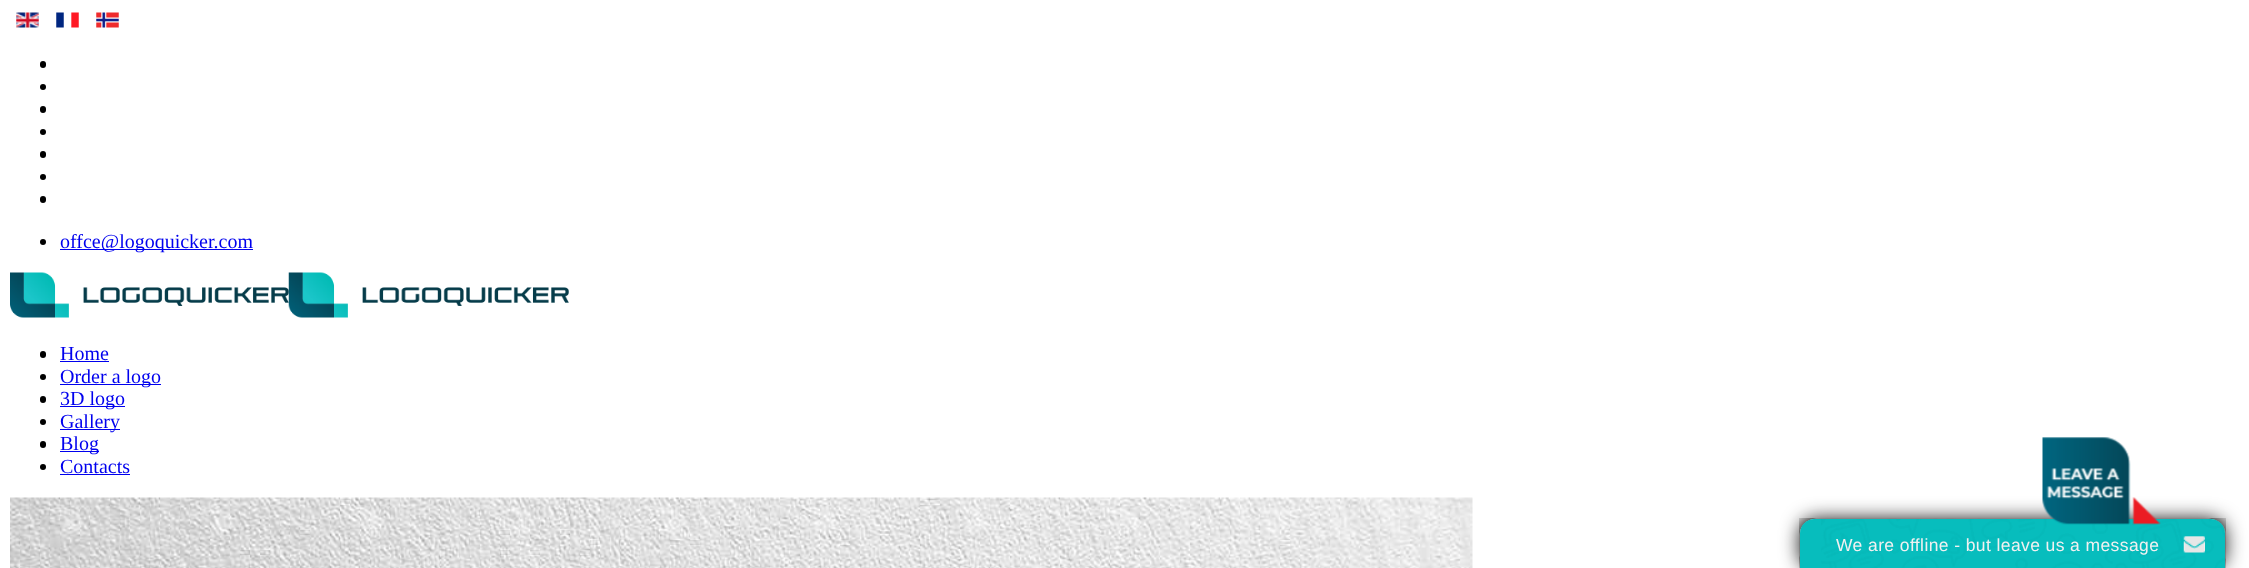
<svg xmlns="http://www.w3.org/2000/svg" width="2249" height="568">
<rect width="100%" height="100%" fill="#fff"/>
<image x="16" y="12" width="23" height="16" href="media/1.png"/>
<image x="56" y="12" width="23" height="16" href="media/2.png"/>
<image x="96" y="12" width="23" height="16" href="media/3.png"/>
<rect x="40" y="61" width="6" height="7" rx="3" fill="#000"/>
<circle cx="43" cy="87" r="3" fill="#000"/>
<rect x="40" y="106" width="6" height="7" rx="3" fill="#000"/>
<circle cx="43" cy="132" r="3" fill="#000"/>
<rect x="40" y="151" width="6" height="7" rx="3" fill="#000"/>
<circle cx="43" cy="177" r="3" fill="#000"/>
<rect x="40" y="196" width="6" height="7" rx="3" fill="#000"/>
<circle cx="43" cy="242" r="3" fill="#000"/>
<rect x="60" y="249" width="193" height="1" fill="#00e"/>
<text x="60" y="248" style="font-family:Liberation Serif;font-size:20px;fill:#00e">offce@logoquicker.com</text>
<image x="10" y="272" width="279" height="46" href="media/4.png"/>
<image x="288" y="272" width="281" height="46" href="media/5.png"/>
<rect x="40" y="351" width="6" height="7" rx="3" fill="#000"/>
<text x="60" y="360" style="font-family:Liberation Serif;font-size:20px;fill:#00e">Home</text>
<rect x="60" y="361" width="49" height="1" fill="#00e"/>
<circle cx="43" cy="377" r="3" fill="#000"/>
<rect x="60" y="384" width="101" height="1" fill="#00e"/>
<text x="60" y="383" style="font-family:Liberation Serif;font-size:20px;fill:#00e">Order a logo</text>
<rect x="40" y="396" width="6" height="7" rx="3" fill="#000"/>
<rect x="60" y="406" width="65" height="1" fill="#00e"/>
<text x="60" y="405" style="font-family:Liberation Serif;font-size:20px;fill:#00e">3D logo</text>
<circle cx="43" cy="422" r="3" fill="#000"/>
<rect x="60" y="429" width="60" height="1" fill="#00e"/>
<text x="60" y="428" style="font-family:Liberation Serif;font-size:20px;fill:#00e">Gallery</text>
<rect x="40" y="441" width="6" height="7" rx="3" fill="#000"/>
<rect x="60" y="451" width="39" height="1" fill="#00e"/>
<text x="60" y="450" style="font-family:Liberation Serif;font-size:20px;fill:#00e">Blog</text>
<circle cx="43" cy="467" r="3" fill="#000"/>
<text x="60" y="473" style="font-family:Liberation Serif;font-size:20px;fill:#00e">Contacts</text>
<rect x="60" y="474" width="70" height="1" fill="#00e"/>
<image x="10" y="497" width="1463" height="71" href="media/6.png"/>
<rect x="1800" y="519" width="425" height="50" rx="16" fill="#111" filter="blur(9.5px)"/>
<image x="1799" y="518" width="427" height="50" href="media/8.png"/>
<path d="M1814 519h397c7.5 0 14 6.5 14 14v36h-425v-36c0-7.5 6.5-14 14-14z" fill="#07bdbd"/>
<image x="1821" y="519" width="404" height="49" href="media/9.png"/>
<image x="2042" y="437" width="119" height="88" href="media/7.png"/>
<text x="1836" y="551" style="font-family:Liberation Sans;font-size:17.5px;letter-spacing:0.4px;fill:#f1f1f1">We are offline - but leave us a message</text>
<image x="2183" y="536" width="22" height="17" href="media/10.png"/>
</svg>
